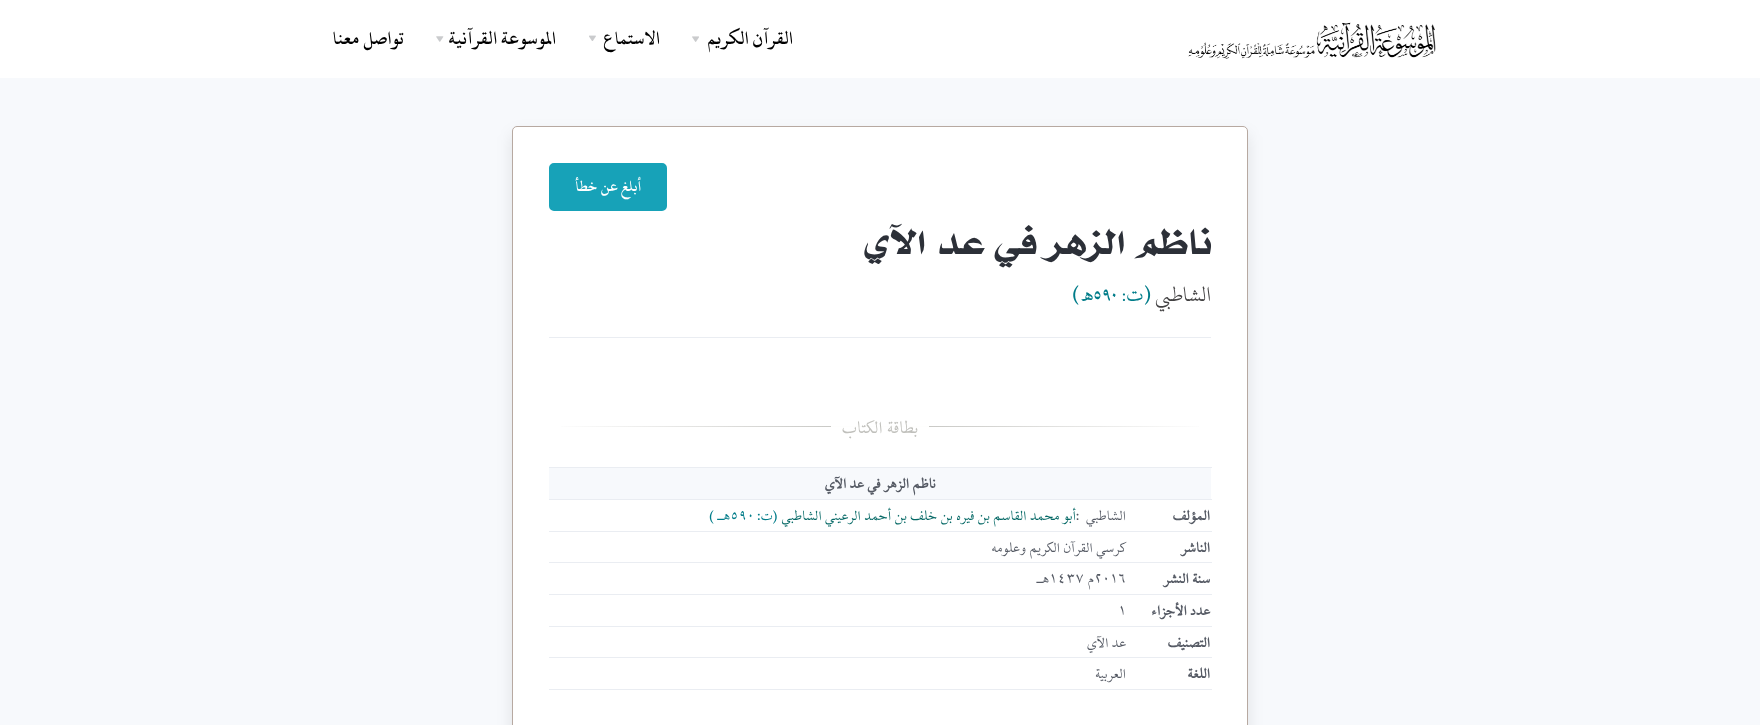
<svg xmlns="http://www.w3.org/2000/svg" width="1760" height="725">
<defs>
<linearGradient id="g1" gradientUnits="userSpaceOnUse" x1="549" y1="427" x2="1211" y2="427"><stop offset="0" stop-color="#fff"/><stop offset="0.5" stop-color="#c0c0bc"/><stop offset="1" stop-color="#fff"/></linearGradient>
</defs>
<rect width="100%" height="100%" fill="#fff"/>
<image x="1188" y="22" width="248" height="37" href="media/1.png"/>
<text x="793" y="44" style="font-family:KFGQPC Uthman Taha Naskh;font-size:20px;font-weight:bold;direction:rtl;fill:#000">القرآن الكريم</text>
<image x="692" y="36" width="7" height="6" href="media/2.png"/>
<text x="660" y="44" style="font-family:KFGQPC Uthman Taha Naskh;font-size:20px;font-weight:bold;direction:rtl;fill:#000">الاستماع</text>
<image x="589" y="35" width="7" height="6" href="media/3.png"/>
<text x="556" y="44" style="font-family:KFGQPC Uthman Taha Naskh;font-size:20px;font-weight:bold;direction:rtl;fill:#000">الموسوعة القرآنية</text>
<image x="436" y="36" width="8" height="6" href="media/4.png"/>
<text x="404" y="44" style="font-family:KFGQPC Uthman Taha Naskh;font-size:20px;font-weight:bold;direction:rtl;fill:#000">تواصل معنا</text>
<rect y="78" width="1760" height="647" fill="#f7f9fc"/>
<rect x="512" y="134" width="736" height="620" rx="5" fill="#00000017" filter="blur(8px)"/>
<rect x="512.5" y="126.5" width="735" height="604" rx="4.5" fill="#fff" stroke="#b7a9a1"/>
<rect x="550" y="164" width="116" height="46" rx="4" fill="#17a2b8" stroke="#17a2b8" stroke-width="2"/>
<text x="641" y="191" style="font-family:KFGQPC Uthman Taha Naskh;font-size:16px;font-weight:bold;direction:rtl;fill:#fff">أبلغ عن خطأ</text>
<rect x="549" y="337" width="662" height="1" fill="#eaedf2"/>
<text x="1211" y="254" style="font-family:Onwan;font-size:40px;font-weight:500;direction:rtl;fill:#2c3038">ناظم الزهر في عد الآي</text>
<text x="1211" y="301" style="font-family:KFGQPC Uthman Taha Naskh;font-size:22.5px;direction:rtl;fill:#424142">الشاطبي</text>
<text x="1151" y="301" style="font-family:KFGQPC Uthman Taha Naskh;font-size:22.5px;direction:rtl;fill:#007c89">(ت:</text>
<text x="1093" y="301" style="font-family:KFGQPC Uthman Taha Naskh;font-size:22.5px;fill:#007c89">590</text>
<text x="1093" y="301" style="font-family:KFGQPC Uthman Taha Naskh;font-size:22.5px;direction:rtl;fill:#007c89">هـ )</text>
<rect x="561" y="426" width="638" height="1" fill="url(#g1)"/>
<rect x="831" y="426" width="98" height="1" fill="#fefefd"/>
<text x="918" y="433" style="font-family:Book;font-size:22.5px;direction:rtl;fill:#c0c0bc">بطاقة الكتاب</text>
<rect x="549" y="468" width="662" height="31" fill="#f7f9fc"/>
<rect x="549" y="467" width="663" height="1" fill="#eaedf2"/>
<rect x="549" y="499" width="663" height="1" fill="#eaedf2"/>
<text x="935" y="488" style="font-family:Book;font-size:17.9px;font-weight:bold;direction:rtl;fill:#555a64">ناظم الزهر في عد الآي</text>
<rect x="549" y="531" width="663" height="1" fill="#eaedf2"/>
<text x="1210" y="520" style="font-family:Book;font-size:17.9px;font-weight:bold;direction:rtl;fill:#555a64">المؤلف</text>
<text x="1126" y="520" style="font-family:Book;font-size:17.9px;direction:rtl;fill:#555a64">الشاطبي</text>
<text x="1076" y="520" style="font-family:Book;font-size:17.9px;fill:#555a64">:</text>
<text x="1076" y="520" style="font-family:Book;font-size:17.9px;direction:rtl;fill:#046865">أبو محمد القاسم بن فيره بن خلف بن أحمد الرعيني الشاطبي</text>
<text x="777" y="520" style="font-family:Book;font-size:17.9px;direction:rtl;fill:#007c89">(ت:</text>
<text x="730" y="520" style="font-family:Book;font-size:17.9px;fill:#007c89">590</text>
<text x="730" y="520" style="font-family:Book;font-size:17.9px;direction:rtl;fill:#007c89">هـ )</text>
<rect x="549" y="562" width="663" height="1" fill="#eaedf2"/>
<text x="1210" y="552" style="font-family:Book;font-size:17.9px;font-weight:bold;direction:rtl;fill:#555a64">الناشر</text>
<text x="1126" y="552" style="font-family:Book;font-size:17.9px;direction:rtl;fill:#555a64">كرسي القرآن الكريم وعلومه</text>
<rect x="549" y="594" width="663" height="1" fill="#eaedf2"/>
<text x="1210" y="583" style="font-family:Book;font-size:17.9px;font-weight:bold;direction:rtl;fill:#555a64">سنة النشر</text>
<text x="1094" y="583" style="font-family:Book;font-size:17.9px;fill:#555a64">2016</text>
<text x="1094" y="583" style="font-family:Book;font-size:17.9px;direction:rtl;fill:#555a64">م</text>
<text x="1049" y="583" style="font-family:Book;font-size:17.9px;fill:#555a64">1437</text>
<text x="1049" y="583" style="font-family:Book;font-size:17.9px;direction:rtl;fill:#555a64">هـ</text>
<rect x="549" y="626" width="663" height="1" fill="#eaedf2"/>
<text x="1210" y="615" style="font-family:Book;font-size:17.9px;font-weight:bold;direction:rtl;fill:#555a64">عدد الأجزاء</text>
<text x="1118" y="615" style="font-family:Book;font-size:17.9px;fill:#555a64">1</text>
<rect x="549" y="657" width="663" height="1" fill="#eaedf2"/>
<text x="1210" y="647" style="font-family:Book;font-size:17.9px;font-weight:bold;direction:rtl;fill:#555a64">التصنيف</text>
<text x="1126" y="647" style="font-family:Book;font-size:17.9px;direction:rtl;fill:#555a64">عد الآي</text>
<rect x="549" y="689" width="663" height="1" fill="#eaedf2"/>
<text x="1210" y="678" style="font-family:Book;font-size:17.9px;font-weight:bold;direction:rtl;fill:#555a64">اللغة</text>
<text x="1126" y="678" style="font-family:Book;font-size:17.9px;direction:rtl;fill:#555a64">العربية</text>
</svg>
